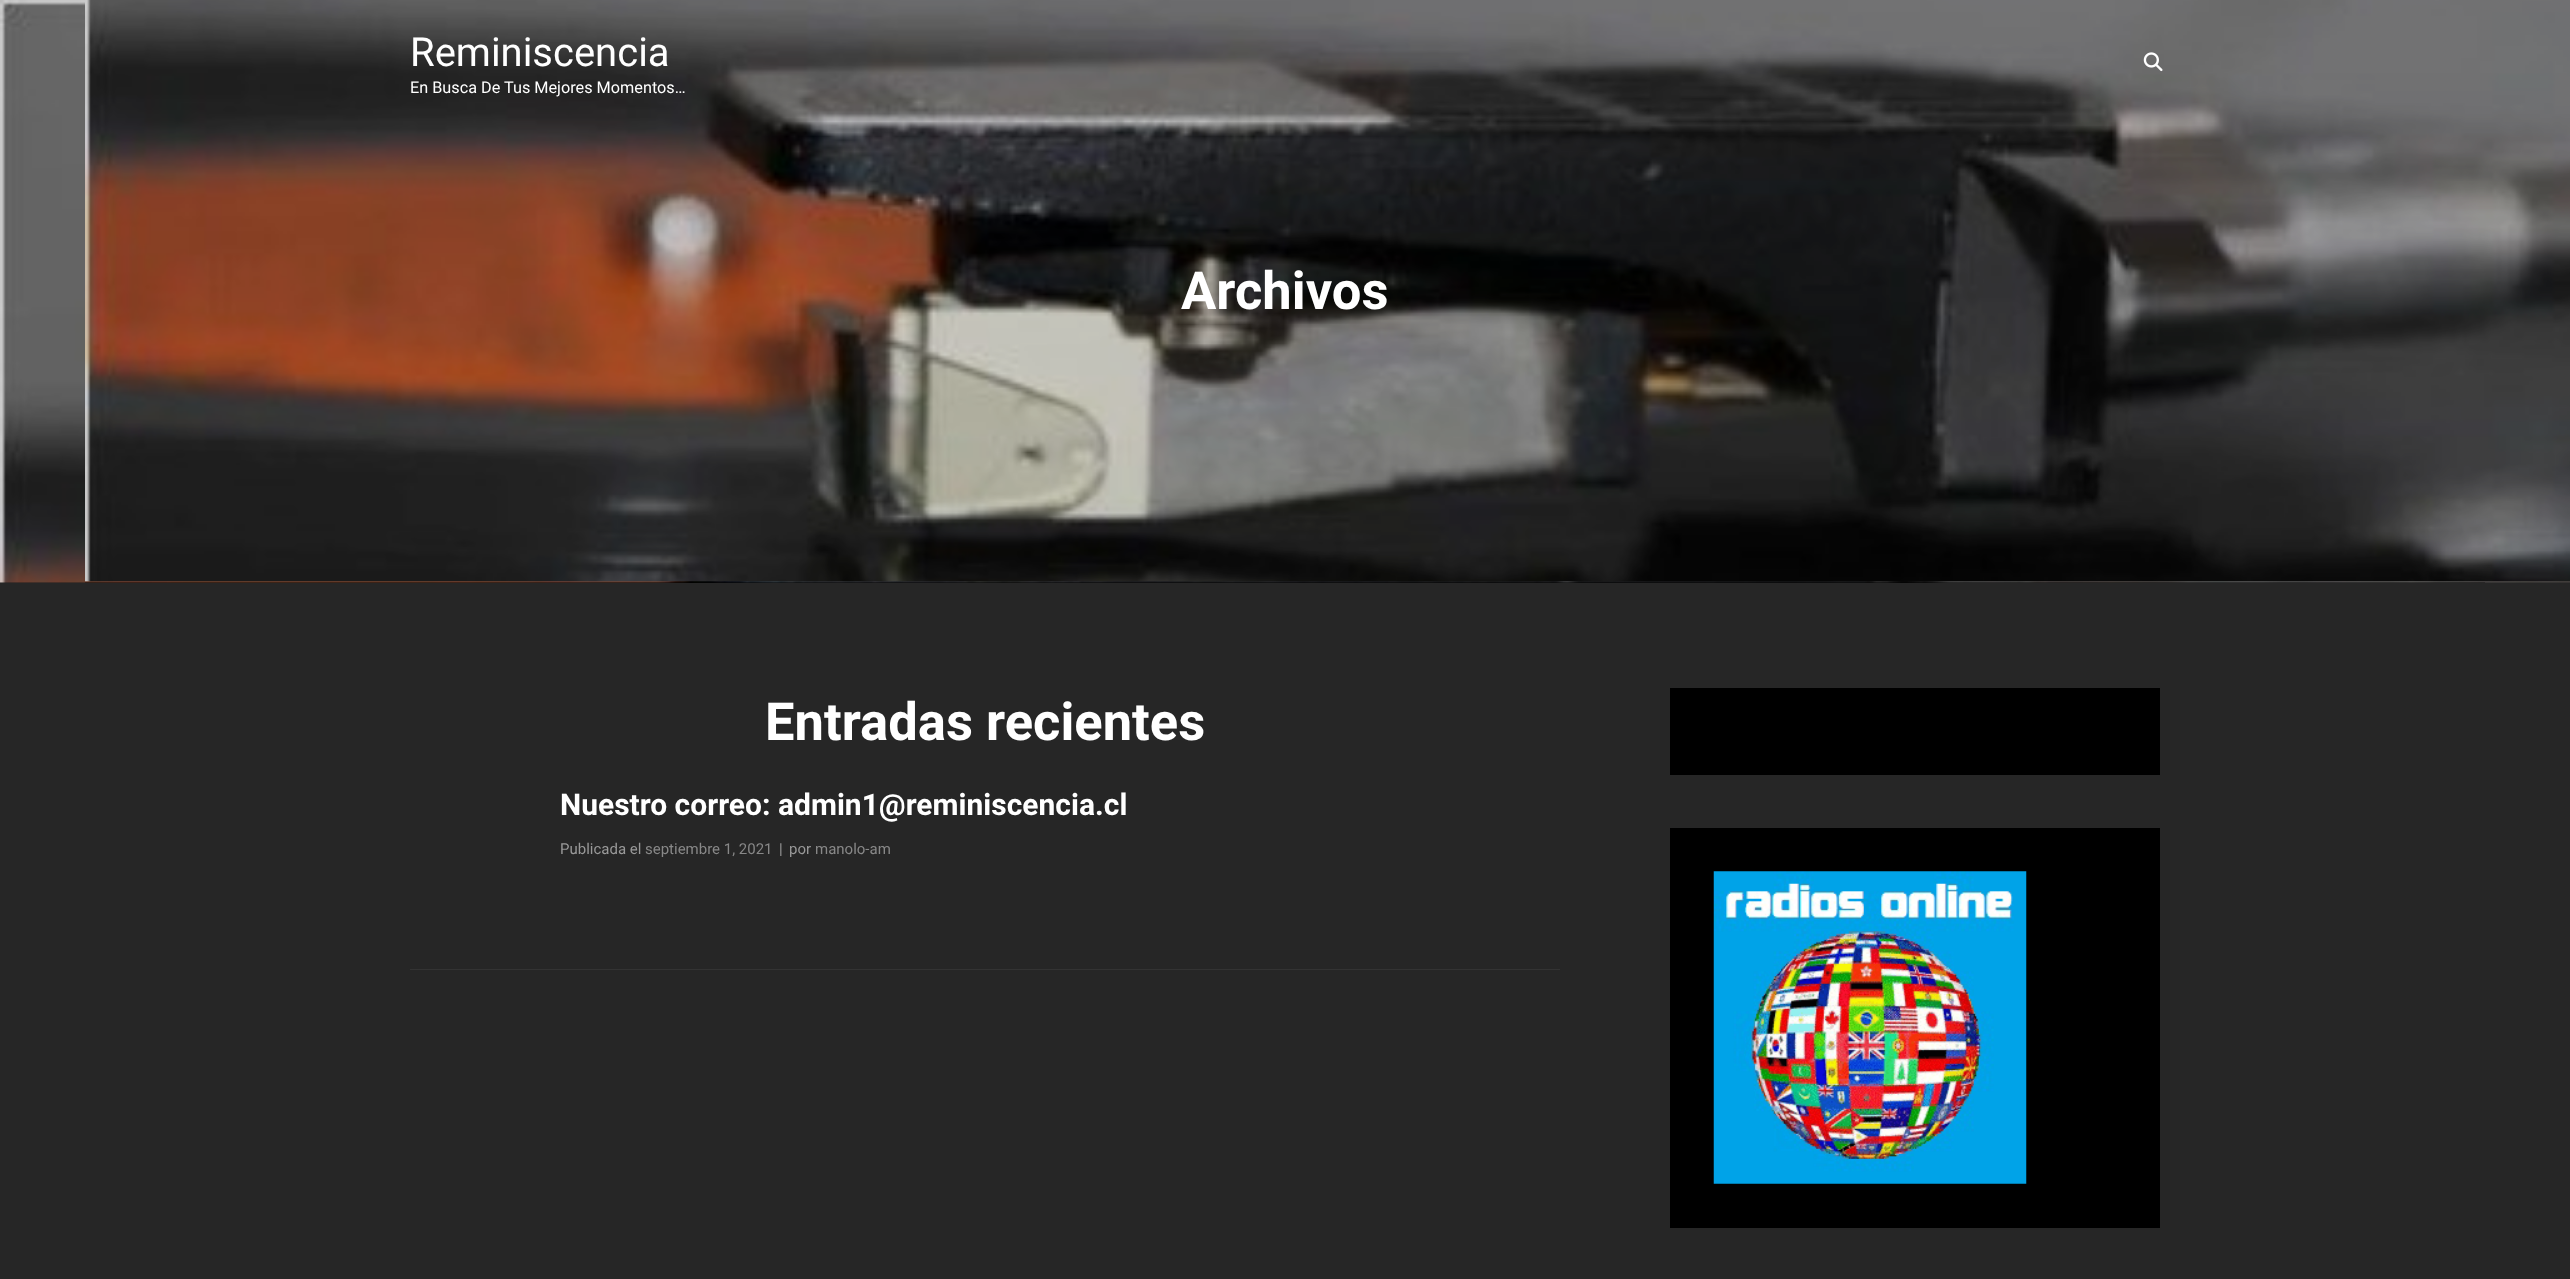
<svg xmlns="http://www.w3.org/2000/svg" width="2570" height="1279">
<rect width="100%" height="100%" fill="#262626"/>
<rect y="582" width="2570" height="1" fill="#1e1e1e"/>
<rect x="85" y="582" width="2400" height="1" fill="#000"/>
<image x="0" y="0" width="2570" height="583" href="media/2.png"/>
<image x="85" y="0" width="2485" height="582" href="media/3.png"/>
<text x="410" y="66" style="font-family:Roboto;font-size:40px;fill:#fff">Reminiscencia</text>
<text x="410" y="93" style="font-family:Roboto;font-size:16.25px;fill:#fff">En Busca De Tus Mejores Momentos…</text>
<image x="2143" y="52" width="20" height="20" href="media/1.png"/>
<text x="1181" y="309" style="font-family:Roboto;font-size:52.5px;font-weight:bold;fill:#fff">Archivos</text>
<text x="765" y="740" style="font-family:Roboto;font-size:52.5px;font-weight:bold;fill:#fff">Entradas recientes</text>
<rect x="410" y="969" width="1150" height="1" fill="#333"/>
<text x="560" y="815" style="font-family:Roboto;font-size:30px;font-weight:bold;fill:#fff">Nuestro correo: admin1@reminiscencia.cl</text>
<text x="560" y="854" style="font-family:Roboto;font-size:15px;fill:#999">Publicada el</text>
<text x="645" y="854" style="font-family:Roboto;font-size:15px;fill:#888">septiembre 1, 2021</text>
<text x="779" y="854" style="font-family:Roboto;font-size:15px;fill:#999">|</text>
<text x="789" y="854" style="font-family:Roboto;font-size:15px;fill:#999">por</text>
<text x="815" y="854" style="font-family:Roboto;font-size:15px;fill:#888">manolo-am</text>
<rect x="1670" y="688" width="490" height="87" fill="#000"/>
<rect x="1670" y="828" width="490" height="400" fill="#000"/>
<image x="1713" y="871" width="314" height="313" href="media/4.png"/>
</svg>
